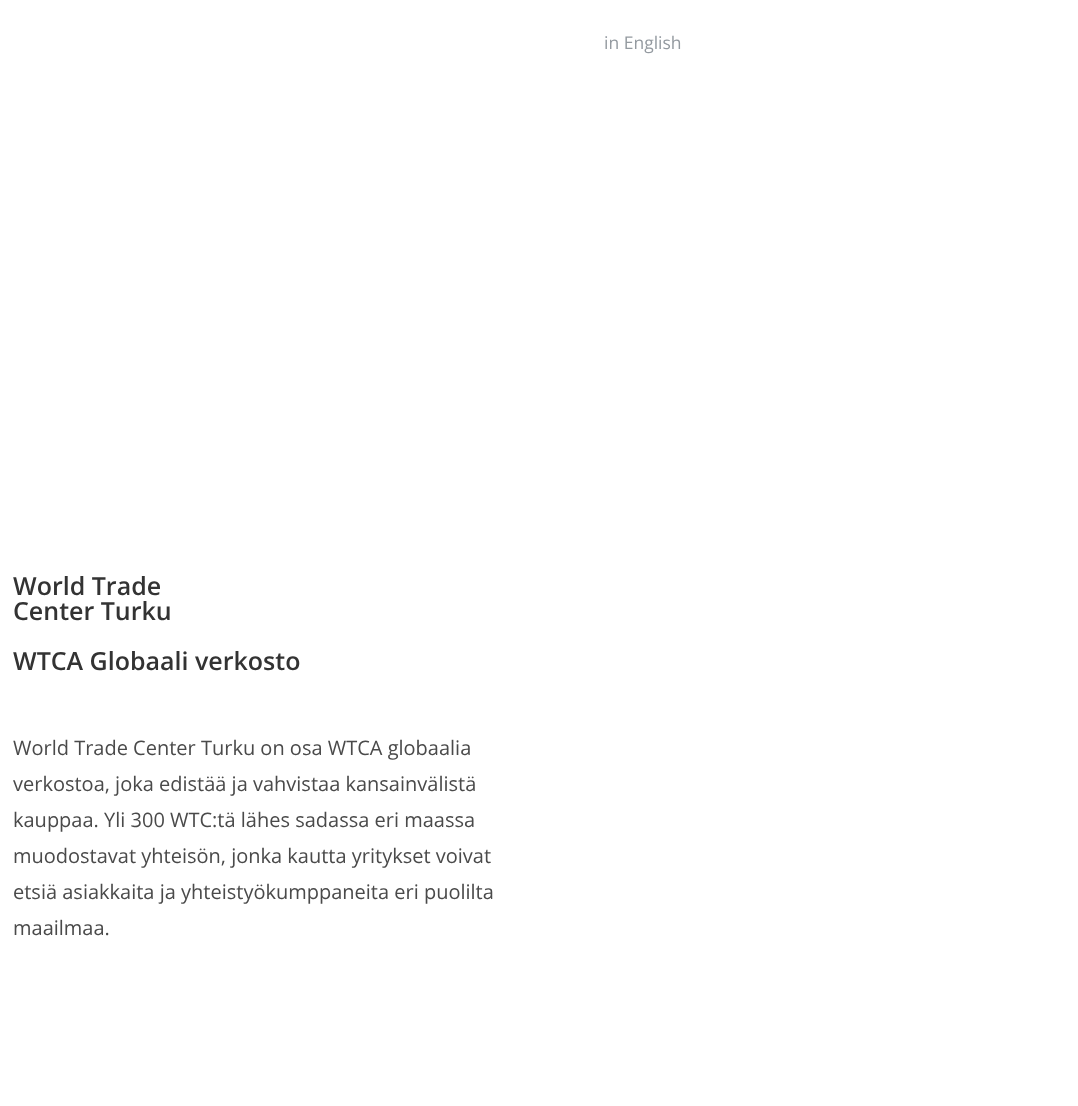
<svg xmlns="http://www.w3.org/2000/svg" width="1078" height="1106">
<rect width="100%" height="100%" fill="#fff"/>
<text x="604" y="49" style="font-family:Open Sans;font-size:17.5px;fill:#949aa0">in English</text>
<text x="13" y="595" style="font-family:Open Sans;font-size:25px;font-weight:600;fill:#333">World Trade</text>
<text x="13" y="620" style="font-family:Open Sans;font-size:25px;font-weight:600;fill:#333">Center Turku</text>
<text x="13" y="670" style="font-family:Open Sans;font-size:25px;font-weight:600;fill:#333">WTCA Globaali verkosto</text>
<text x="13" y="755" style="font-family:Open Sans;font-size:20px;fill:#4a4a4a">World Trade Center Turku on osa WTCA globaalia</text>
<text x="13" y="791" style="font-family:Open Sans;font-size:20px;fill:#4a4a4a">verkostoa, joka edistää ja vahvistaa kansainvälistä</text>
<text x="13" y="827" style="font-family:Open Sans;font-size:20px;fill:#4a4a4a">kauppaa. Yli 300 WTC:tä lähes sadassa eri maassa</text>
<text x="13" y="863" style="font-family:Open Sans;font-size:20px;fill:#4a4a4a">muodostavat yhteisön, jonka kautta yritykset voivat</text>
<text x="13" y="899" style="font-family:Open Sans;font-size:20px;fill:#4a4a4a">etsiä asiakkaita ja yhteistyökumppaneita eri puolilta</text>
<text x="13" y="935" style="font-family:Open Sans;font-size:20px;fill:#4a4a4a">maailmaa.</text>
</svg>
